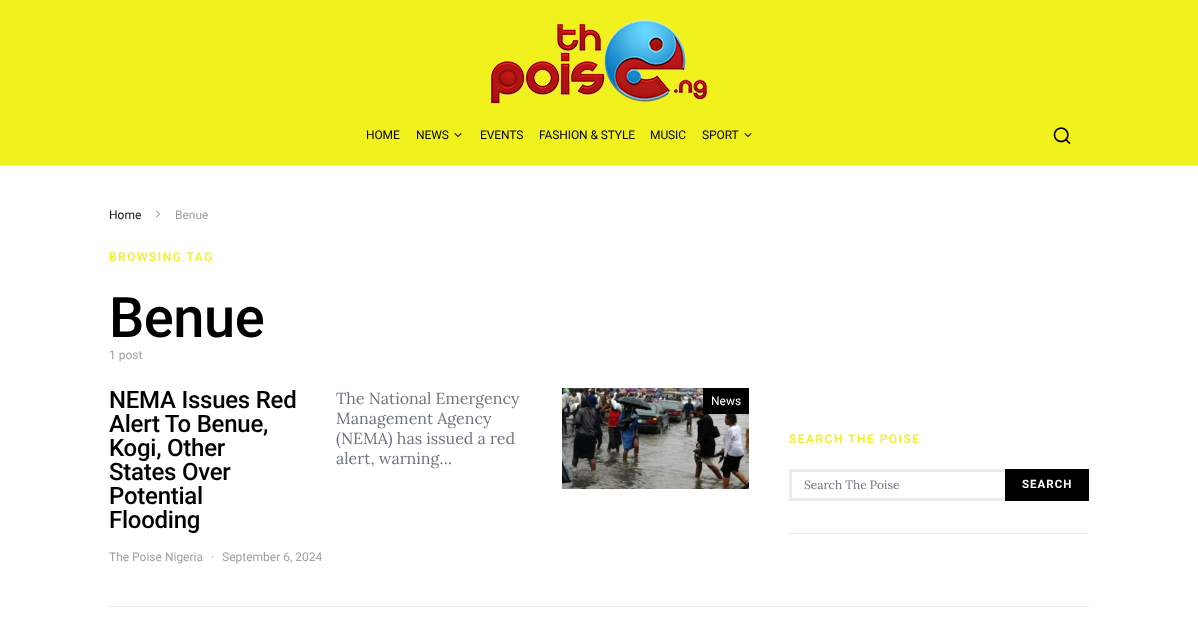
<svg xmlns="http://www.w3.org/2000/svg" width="1198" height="644">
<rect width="100%" height="100%" fill="#fff"/>
<rect width="1198" height="165" fill="#f1f11e"/>
<image x="491" y="20" width="216" height="85" href="media/1.png"/>
<rect y="165" width="1198" height="1" fill="#e9ecef"/>
<text x="366" y="139" style="font-family:Roboto;font-size:12px;letter-spacing:-0.1px;fill:#000">HOME</text>
<text x="416" y="139" style="font-family:Roboto;font-size:12px;letter-spacing:-0.1px;fill:#000">NEWS</text>
<image x="454" y="133" width="8" height="4" href="media/2.png"/>
<text x="480" y="139" style="font-family:Roboto;font-size:12px;letter-spacing:-0.1px;fill:#000">EVENTS</text>
<text x="539" y="139" style="font-family:Roboto;font-size:12px;letter-spacing:-0.1px;fill:#000">FASHION &amp; STYLE</text>
<text x="650" y="139" style="font-family:Roboto;font-size:12px;letter-spacing:-0.1px;fill:#000">MUSIC</text>
<text x="702" y="139" style="font-family:Roboto;font-size:12px;letter-spacing:-0.1px;fill:#000">SPORT</text>
<image x="744" y="133" width="8" height="4" href="media/2.png"/>
<image x="1053" y="127" width="18" height="17" href="media/3.png"/>
<text x="109" y="219" style="font-family:Roboto;font-size:12px;fill:#121416">Home</text>
<image x="156" y="210" width="4" height="8" href="media/4.png"/>
<text x="175" y="219" style="font-family:Roboto;font-size:12px;fill:#a0a0a0">Benue</text>
<text x="109" y="261" style="font-family:Roboto;font-size:12px;font-weight:500;letter-spacing:1.5px;fill:#ee2">BROWSING TAG</text>
<text x="109" y="337" style="font-family:Roboto;font-size:56px;font-weight:500;letter-spacing:-0.5px;fill:#000">Benue</text>
<text x="109" y="359" style="font-family:Roboto;font-size:12px;fill:#a0a0a0">1 post</text>
<text x="109" y="408" style="font-family:Roboto;font-size:24px;font-weight:500;letter-spacing:-0.25px;fill:#000">NEMA Issues Red</text>
<text x="109" y="432" style="font-family:Roboto;font-size:24px;font-weight:500;letter-spacing:-0.25px;fill:#000">Alert To Benue,</text>
<text x="109" y="456" style="font-family:Roboto;font-size:24px;font-weight:500;letter-spacing:-0.25px;fill:#000">Kogi, Other</text>
<text x="109" y="480" style="font-family:Roboto;font-size:24px;font-weight:500;letter-spacing:-0.25px;fill:#000">States Over</text>
<text x="109" y="504" style="font-family:Roboto;font-size:24px;font-weight:500;letter-spacing:-0.25px;fill:#000">Potential</text>
<text x="109" y="528" style="font-family:Roboto;font-size:24px;font-weight:500;letter-spacing:-0.25px;fill:#000">Flooding</text>
<text x="336" y="404" style="font-family:Lora;font-size:16px;fill:#6c757d">The National Emergency</text>
<text x="336" y="424" style="font-family:Lora;font-size:16px;fill:#6c757d">Management Agency</text>
<text x="336" y="444" style="font-family:Lora;font-size:16px;fill:#6c757d">(NEMA) has issued a red</text>
<text x="336" y="464" style="font-family:Lora;font-size:16px;fill:#6c757d">alert, warning…</text>
<text x="109" y="561" style="font-family:Roboto;font-size:12px;fill:#a0a0a0">The Poise Nigeria</text>
<text x="211" y="561" style="font-family:Roboto;font-size:12px;fill:#a0a0a0">·</text>
<text x="222" y="561" style="font-family:Roboto;font-size:12px;fill:#a0a0a0">September 6, 2024</text>
<image x="562" y="388" width="187" height="101" href="media/5.png"/>
<rect x="703" y="388" width="46" height="26" fill="#000"/>
<text x="711" y="405" style="font-family:Roboto;font-size:12px;fill:#fff">News</text>
<rect x="789" y="533" width="300" height="1" fill="#e9ecef"/>
<text x="789" y="443" style="font-family:Roboto;font-size:12px;font-weight:500;letter-spacing:1.5px;fill:#ee2">SEARCH THE POISE</text>
<rect x="789" y="469" width="216" height="32" fill="#e9ecef"/>
<rect x="792" y="472" width="213" height="26" fill="#fff"/>
<text x="804" y="489" style="font-family:Lora;font-size:12px;fill:#6c757d">Search The Poise</text>
<rect x="1005" y="469" width="84" height="32" fill="#000"/>
<text x="1022" y="488" style="font-family:Roboto;font-size:11.5px;font-weight:bold;letter-spacing:1px;fill:#fff">SEARCH</text>
<rect x="109" y="606" width="980" height="1" fill="#e9ecef"/>
</svg>
